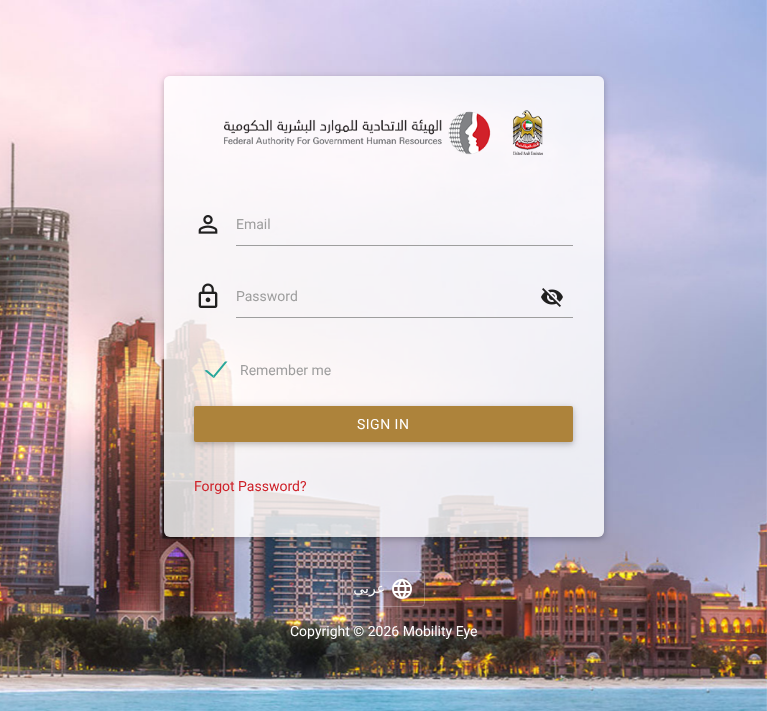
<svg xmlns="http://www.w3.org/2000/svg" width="767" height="711">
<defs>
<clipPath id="clip1"><path d="M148 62h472v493h-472zm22 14h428c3.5 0 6 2.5 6 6v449c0 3.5-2.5 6-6 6h-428c-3.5 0-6-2.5-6-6v-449c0-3.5 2.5-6 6-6z" clip-rule="evenodd"/></clipPath>
<clipPath id="clip2"><path d="M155 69h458v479h-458zm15 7h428c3.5 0 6 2.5 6 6v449c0 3.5-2.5 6-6 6h-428c-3.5 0-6-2.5-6-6v-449c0-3.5 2.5-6 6-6z" clip-rule="evenodd"/></clipPath>
</defs>
<rect width="100%" height="100%" fill="#fff"/>
<image x="0" y="0" width="767" height="711" href="media/1.png"/>
<g clip-path="url(#clip1)">
<rect x="164" y="78" width="440" height="461" rx="6" fill="#0000001f" filter="blur(5px)"/>
</g>
<g clip-path="url(#clip2)">
<rect x="164" y="78" width="440" height="461" rx="6" fill="#00000029" filter="blur(2.5px)"/>
</g>
<rect x="164" y="76" width="440" height="461" rx="6" fill="#ffffffcc"/>
<image x="224" y="110" width="319" height="45" href="media/2.png"/>
<image x="198" y="215" width="20" height="19" href="media/3.png"/>
<text x="236" y="229" style="font-family:Roboto;font-size:14px;fill:#9e9e9e">Email</text>
<rect x="236" y="245" width="337" height="1" fill="#9e9e9e"/>
<image x="198" y="283" width="20" height="25" href="media/4.png"/>
<text x="236" y="301" style="font-family:Roboto;font-size:14px;fill:#9e9e9e">Password</text>
<image x="541" y="288" width="22" height="19" href="media/5.png"/>
<rect x="236" y="317" width="337" height="1" fill="#9e9e9e"/>
<path d="M214 378h-.5v-2.5l11.5-14h2.5z" fill="#26a69a"/>
<path d="M205 371l-.5-.5l2.5-.5l6.5 5.5v2.5z" fill="#26a69a"/>
<text x="240" y="375" style="font-family:Roboto;font-size:14px;fill:#9e9e9e">Remember me</text>
<rect x="194" y="408" width="379" height="36" rx="2" fill="#0000001f" filter="blur(5px)"/>
<rect x="194" y="408" width="379" height="36" rx="2" fill="#00000029" filter="blur(2.5px)"/>
<rect x="194" y="406" width="379" height="36" rx="2" fill="#ad833b"/>
<text x="357" y="429" style="font-family:Roboto;font-size:14px;letter-spacing:0.5px;fill:#fff">SIGN IN</text>
<text x="194" y="491" style="font-family:Roboto;font-size:14px;fill:#ce2129">Forgot Password?</text>
<rect x="342.5" y="571.5" width="82" height="35" rx="3.5" fill="none" stroke="#ffffff40"/>
<text x="385" y="593" style="font-family:DejaVu Sans;font-size:14px;direction:rtl;fill:#fff">عربي</text>
<image x="392" y="579" width="20" height="20" href="media/6.png"/>
<text x="290" y="636" style="font-family:Roboto;font-size:14px;fill:#fff">Copyright © 2026 Mobility Eye</text>
</svg>
